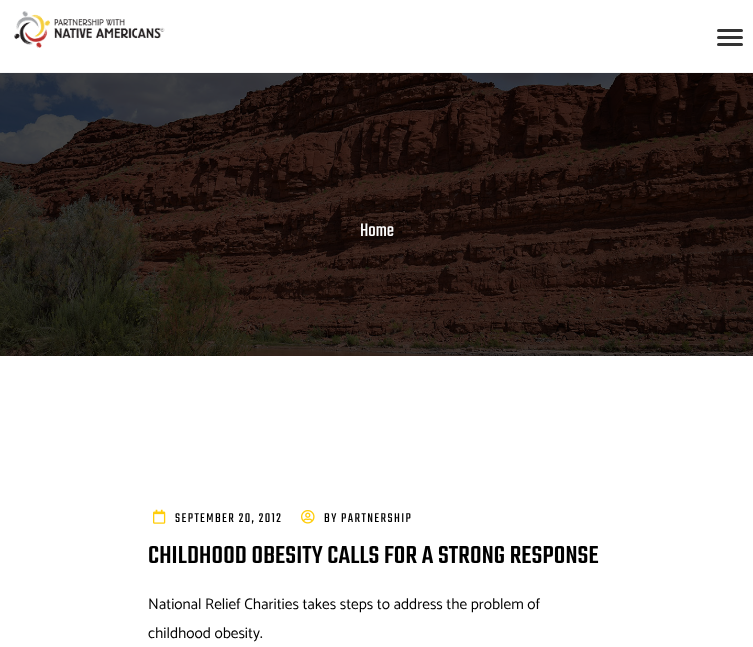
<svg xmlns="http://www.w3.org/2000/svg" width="753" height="647">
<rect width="100%" height="100%" fill="#fff"/>
<rect y="72" width="753" height="1" fill="#f6f6f6"/>
<image x="14" y="11" width="151" height="37" href="media/1.png"/>
<rect x="717" y="29" width="26" height="3" rx="1.5" fill="#333"/>
<rect x="717" y="36" width="26" height="3" rx="1.5" fill="#333"/>
<rect x="717" y="43" width="26" height="3" rx="1.5" fill="#333"/>
<image x="0" y="73" width="753" height="283" href="media/2.png"/>
<text x="360" y="236" style="font-family:Teko;font-size:20px;fill:#fff">Home</text>
<image x="153" y="509" width="13" height="15" href="media/3.png"/>
<text x="175" y="522" style="font-family:Teko;font-size:14px;letter-spacing:1.4px;fill:#000">SEPTEMBER 20, 2012</text>
<image x="301" y="510" width="14" height="14" href="media/4.png"/>
<text x="324" y="522" style="font-family:Teko;font-size:14px;letter-spacing:1.4px;fill:#000">BY PARTNERSHIP</text>
<text x="148" y="563" style="font-family:Teko;font-size:26.9px;font-weight:500;letter-spacing:0.15px;fill:#000">CHILDHOOD OBESITY CALLS FOR A STRONG RESPONSE</text>
<text x="148" y="609" style="font-family:Catamaran;font-size:15.35px;fill:#000">National Relief Charities takes steps to address the problem of</text>
<text x="148" y="638" style="font-family:Catamaran;font-size:15.35px;fill:#000">childhood obesity.</text>
</svg>
